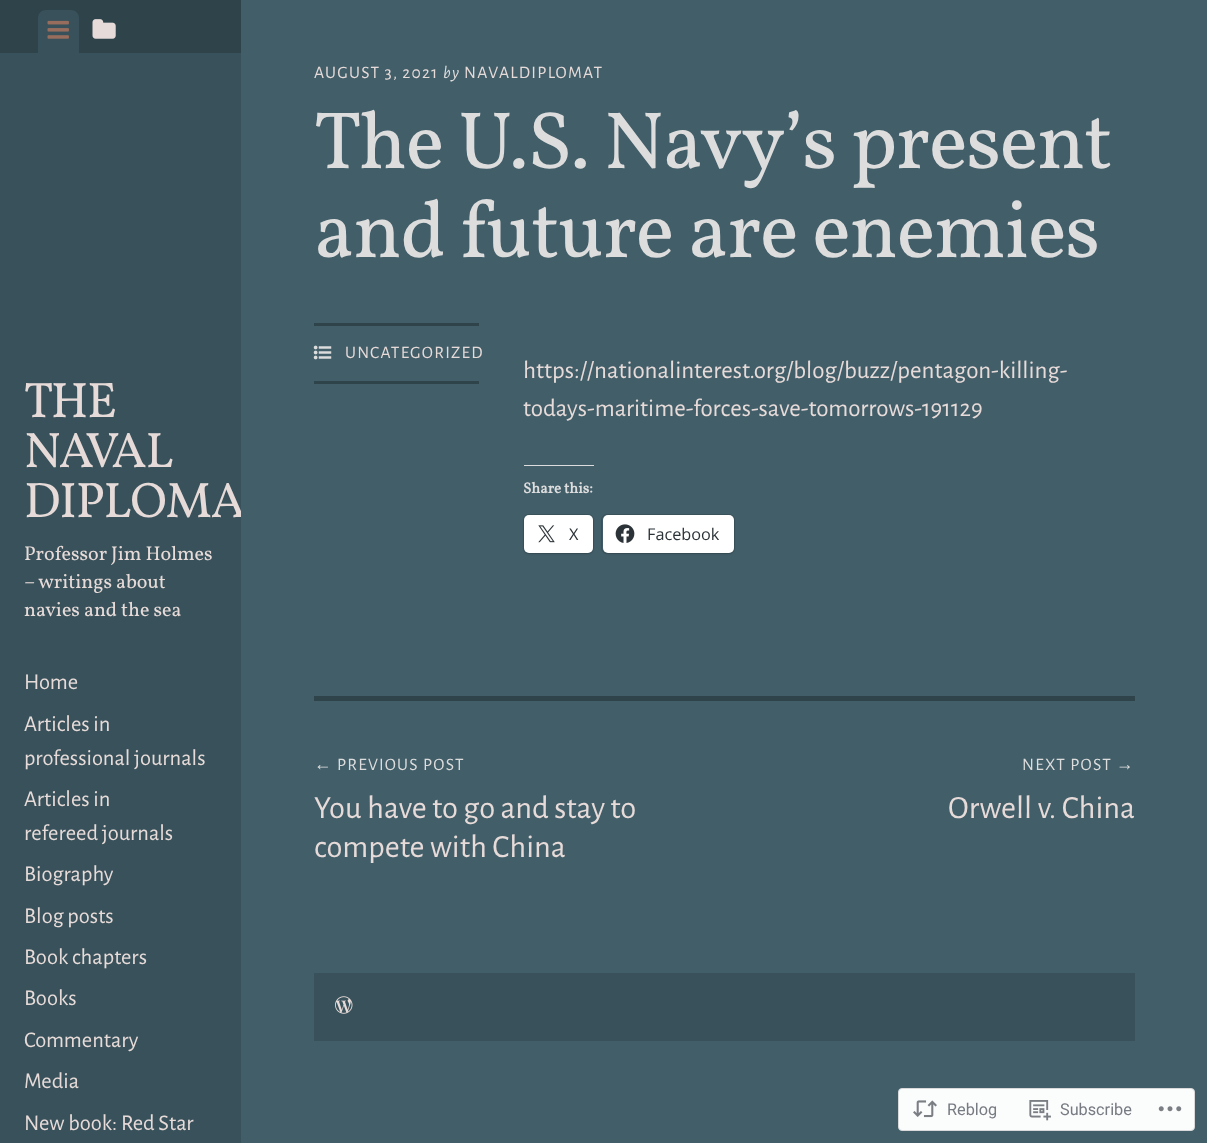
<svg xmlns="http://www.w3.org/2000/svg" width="1207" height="1143">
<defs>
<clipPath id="clip1"><rect width="241" height="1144"/></clipPath>
</defs>
<rect width="100%" height="100%" fill="#425e69"/>
<rect y="53" width="241" height="1090" fill="#38515a"/>
<rect width="241" height="53" fill="#2f434b"/>
<path d="M46 10h25c4.5 0 8 3.5 8 8v35h-41v-35c0-4.5 3.5-8 8-8z" fill="#38515a"/>
<image x="47" y="20" width="22" height="19" href="media/1.png"/>
<image x="92" y="19" width="24" height="20" href="media/2.png"/>
<text x="24" y="417" style="font-family:Vollkorn;font-size:50px;letter-spacing:-1.25px;fill:#e7dbd9">THE</text>
<text x="24" y="467" style="font-family:Vollkorn;font-size:50px;letter-spacing:-1.25px;fill:#e7dbd9">NAVAL</text>
<g clip-path="url(#clip1)">
<text x="24" y="517" style="font-family:Vollkorn;font-size:50px;letter-spacing:-1.25px;fill:#e7dbd9">DIPLOMA</text>
</g>
<text x="24" y="560" style="font-family:Vollkorn;font-size:20px;fill:#e7dbd9">Professor Jim Holmes</text>
<text x="24" y="588" style="font-family:Vollkorn;font-size:20px;fill:#e7dbd9">– writings about</text>
<text x="24" y="616" style="font-family:Vollkorn;font-size:20px;fill:#e7dbd9">navies and the sea</text>
<text x="24" y="689" style="font-family:Alegreya Sans;font-size:22.5px;fill:#e7dbd9">Home</text>
<text x="24" y="731" style="font-family:Alegreya Sans;font-size:22.5px;fill:#e7dbd9">Articles in</text>
<text x="24" y="765" style="font-family:Alegreya Sans;font-size:22.5px;fill:#e7dbd9">professional journals</text>
<text x="24" y="806" style="font-family:Alegreya Sans;font-size:22.5px;fill:#e7dbd9">Articles in</text>
<text x="24" y="840" style="font-family:Alegreya Sans;font-size:22.5px;fill:#e7dbd9">refereed journals</text>
<text x="24" y="881" style="font-family:Alegreya Sans;font-size:22.5px;fill:#e7dbd9">Biography</text>
<text x="24" y="923" style="font-family:Alegreya Sans;font-size:22.5px;fill:#e7dbd9">Blog posts</text>
<text x="24" y="964" style="font-family:Alegreya Sans;font-size:22.5px;fill:#e7dbd9">Book chapters</text>
<text x="24" y="1005" style="font-family:Alegreya Sans;font-size:22.5px;fill:#e7dbd9">Books</text>
<text x="24" y="1047" style="font-family:Alegreya Sans;font-size:22.5px;fill:#e7dbd9">Commentary</text>
<text x="24" y="1088" style="font-family:Alegreya Sans;font-size:22.5px;fill:#e7dbd9">Media</text>
<text x="24" y="1130" style="font-family:Alegreya Sans;font-size:22.5px;fill:#e7dbd9">New book: Red Star</text>
<text x="314" y="78" style="font-family:Alegreya Sans;font-size:17.5px;letter-spacing:1.25px;fill:#e7dbd9">AUGUST 3, 2021</text>
<text x="443" y="78" style="font-family:Alegreya Sans;font-size:17.5px;font-style:italic;letter-spacing:1.25px;fill:#ddd">by</text>
<text x="464" y="78" style="font-family:Alegreya Sans;font-size:17.5px;letter-spacing:1.25px;fill:#e7dbd9">NAVALDIPLOMAT</text>
<text x="314" y="168" style="font-family:Vollkorn;font-size:81.25px;letter-spacing:-1.25px;fill:#ddd">The U.S. Navy’s present</text>
<text x="314" y="257" style="font-family:Vollkorn;font-size:81.25px;letter-spacing:-1.25px;fill:#ddd">and future are enemies</text>
<rect x="314" y="323" width="165" height="3" fill="#2f434b"/>
<rect x="314" y="381" width="165" height="3" fill="#2f434b"/>
<image x="313" y="345" width="19" height="15" href="media/3.png"/>
<text x="345" y="358" style="font-family:Alegreya Sans;font-size:17.5px;letter-spacing:1.25px;fill:#e7dbd9">UNCATEGORIZED</text>
<text x="523" y="378" style="font-family:Alegreya Sans;font-size:25px;fill:#e7dbd9">https://nationalinterest.org/blog/buzz/pentagon-killing-</text>
<text x="523" y="416" style="font-family:Alegreya Sans;font-size:25px;fill:#e7dbd9">todays-maritime-forces-save-tomorrows-191129</text>
<rect x="524" y="465" width="70" height="1" fill="#dcdcde"/>
<text x="523" y="493" style="font-family:Vollkorn;font-size:15px;font-weight:bold;fill:#ddd">Share this:</text>
<rect x="523.5" y="514.5" width="70" height="39" rx="5.5" fill="none" stroke="#3a535c"/>
<rect x="524" y="516" width="69" height="38" rx="5" fill="#0000001f" filter="blur(1px)"/>
<rect x="524" y="515" width="69" height="38" rx="5" fill="#fff"/>
<image x="538" y="525" width="17" height="18" href="media/4.png"/>
<text x="569" y="540" style="font-family:Open Sans;font-size:16.25px;fill:#2c3338">X</text>
<rect x="601.5" y="514.5" width="133" height="39" rx="5.5" fill="none" stroke="#3a535c"/>
<rect x="603" y="516" width="131" height="38" rx="5" fill="#0000001f" filter="blur(1px)"/>
<rect x="603" y="515" width="131" height="38" rx="5" fill="#fff"/>
<image x="615" y="524" width="20" height="19" href="media/5.png"/>
<text x="647" y="540" style="font-family:Open Sans;font-size:16.25px;fill:#2c3338">Facebook</text>
<rect x="314" y="696" width="821" height="5" fill="#2f434b"/>
<text x="314" y="770" style="font-family:Liberation Sans;font-size:17.5px;letter-spacing:1.25px;fill:#ddd">←</text>
<text x="337" y="770" style="font-family:Alegreya Sans;font-size:17.5px;letter-spacing:1.25px;fill:#ddd">PREVIOUS POST</text>
<text x="314" y="818" style="font-family:Alegreya Sans;font-size:32.5px;fill:#e7dbd9">You have to go and stay to</text>
<text x="314" y="857" style="font-family:Alegreya Sans;font-size:32.5px;fill:#e7dbd9">compete with China</text>
<text x="1022" y="770" style="font-family:Alegreya Sans;font-size:17.5px;letter-spacing:1.25px;fill:#ddd">NEXT POST</text>
<text x="1116" y="770" style="font-family:Liberation Sans;font-size:17.5px;letter-spacing:1.25px;fill:#ddd">→</text>
<text x="948" y="818" style="font-family:Alegreya Sans;font-size:32.5px;fill:#e7dbd9">Orwell v. China</text>
<rect x="314" y="973" width="821" height="68" fill="#38515a"/>
<image x="335" y="996" width="18" height="18" href="media/6.png"/>
<rect x="898.5" y="1088.5" width="296" height="42" rx="3.5" fill="#fbfcfc" stroke="#d9d9dc"/>
<image x="913" y="1100" width="24" height="18" href="media/7.png"/>
<text x="947" y="1115" style="font-family:Roboto;font-size:16.25px;fill:#777b82">Reblog</text>
<image x="1029" y="1100" width="22" height="21" href="media/8.png"/>
<text x="1060" y="1115" style="font-family:Roboto;font-size:16.25px;fill:#777b82">Subscribe</text>
<image x="1158" y="1106" width="24" height="6" href="media/9.png"/>
</svg>
